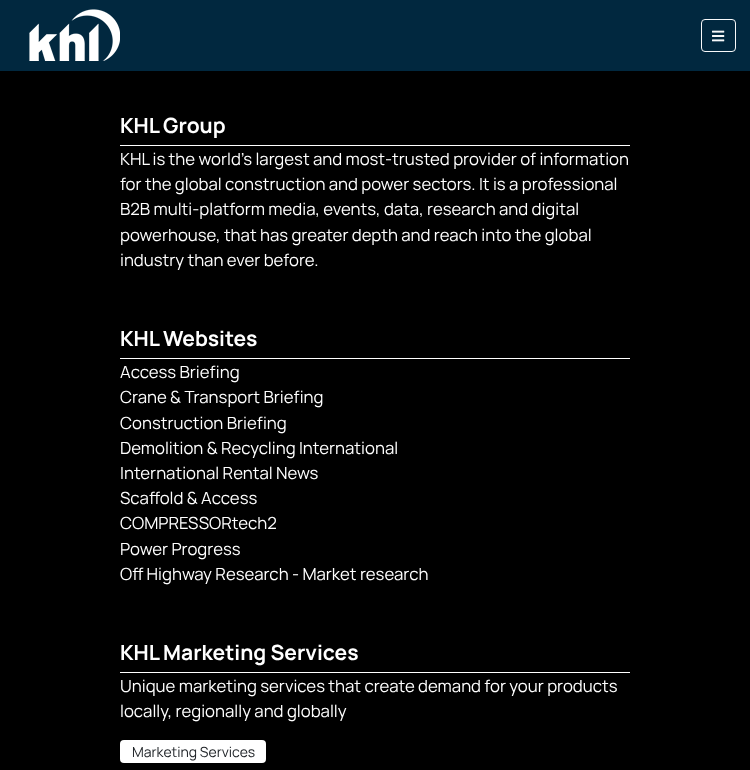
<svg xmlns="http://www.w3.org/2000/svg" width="750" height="770">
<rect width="100%" height="100%" fill="#000"/>
<rect width="750" height="71" fill="#01283f"/>
<image x="29" y="9" width="91" height="52" href="media/1.png"/>
<rect x="701.5" y="19.5" width="34" height="32" rx="3.5" fill="none" stroke="#f8f9fa"/>
<image x="712" y="30" width="13" height="12" href="media/2.png"/>
<text x="120" y="133" style="font-family:Manrope;font-size:21px;font-weight:bold;fill:#fff">KHL Group</text>
<rect x="120" y="145" width="510" height="1" fill="#fff"/>
<text x="120" y="165" style="font-family:Manrope;font-size:16.8px;fill:#fff">KHL is the world’s largest and most-trusted provider of information</text>
<text x="120" y="190" style="font-family:Manrope;font-size:16.8px;fill:#fff">for the global construction and power sectors. It is a professional</text>
<text x="120" y="215" style="font-family:Manrope;font-size:16.8px;fill:#fff">B2B multi-platform media, events, data, research and digital</text>
<text x="120" y="241" style="font-family:Manrope;font-size:16.8px;fill:#fff">powerhouse, that has greater depth and reach into the global</text>
<text x="120" y="266" style="font-family:Manrope;font-size:16.8px;fill:#fff">industry than ever before.</text>
<text x="120" y="346" style="font-family:Manrope;font-size:21px;font-weight:bold;fill:#fff">KHL Websites</text>
<rect x="120" y="358" width="510" height="1" fill="#fff"/>
<text x="120" y="378" style="font-family:Manrope;font-size:16.8px;fill:#fff">Access Briefing</text>
<text x="120" y="403" style="font-family:Manrope;font-size:16.8px;fill:#fff">Crane &amp; Transport Briefing</text>
<text x="120" y="429" style="font-family:Manrope;font-size:16.8px;fill:#fff">Construction Briefing</text>
<text x="120" y="454" style="font-family:Manrope;font-size:16.8px;fill:#fff">Demolition &amp; Recycling International</text>
<text x="120" y="479" style="font-family:Manrope;font-size:16.8px;fill:#fff">International Rental News</text>
<text x="120" y="504" style="font-family:Manrope;font-size:16.8px;fill:#fff">Scaffold &amp; Access</text>
<text x="120" y="529" style="font-family:Manrope;font-size:16.8px;fill:#fff">COMPRESSORtech2</text>
<text x="120" y="555" style="font-family:Manrope;font-size:16.8px;fill:#fff">Power Progress</text>
<text x="120" y="580" style="font-family:Manrope;font-size:16.8px;fill:#fff">Off Highway Research - Market research</text>
<text x="120" y="660" style="font-family:Manrope;font-size:21px;font-weight:bold;fill:#fff">KHL Marketing Services</text>
<rect x="120" y="672" width="510" height="1" fill="#fff"/>
<text x="120" y="692" style="font-family:Manrope;font-size:16.8px;fill:#fff">Unique marketing services that create demand for your products</text>
<text x="120" y="717" style="font-family:Manrope;font-size:16.8px;fill:#fff">locally, regionally and globally</text>
<rect x="120" y="740" width="146" height="23" rx="4" fill="#fff"/>
<text x="132" y="757" style="font-family:Manrope;font-size:14px;fill:#212529">Marketing Services</text>
</svg>
